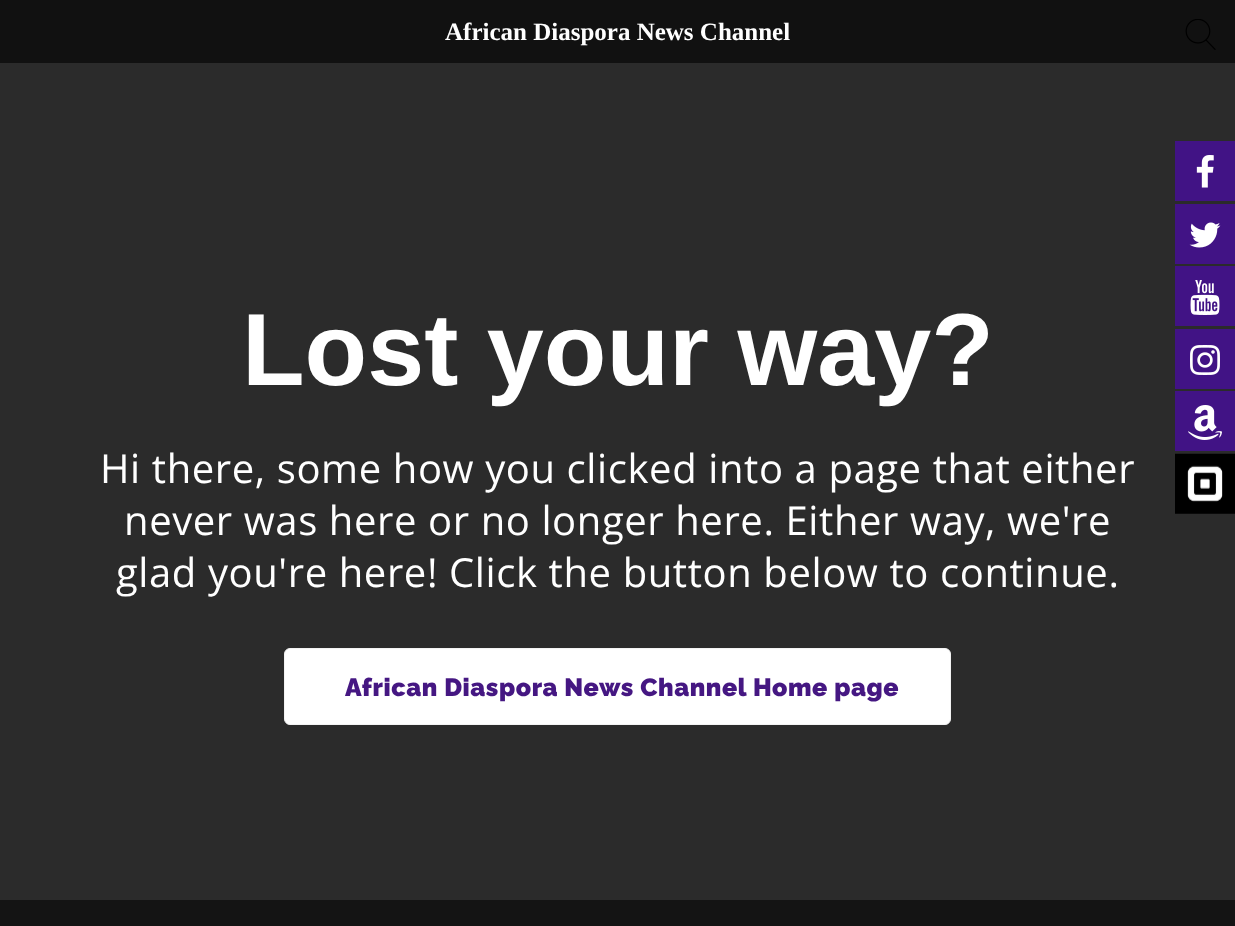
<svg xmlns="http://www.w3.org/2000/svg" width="1235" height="926">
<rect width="100%" height="100%" fill="#141414"/>
<rect width="1235" height="63" fill="#111"/>
<text x="445" y="40" style="font-family:Liberation Serif;font-size:25px;font-weight:bold;fill:#fff">African Diaspora News Channel</text>
<image x="1185" y="19" width="31" height="31" href="media/1.png"/>
<rect y="63" width="1235" height="837" fill="#2b2b2b"/>
<text x="242" y="385" style="font-family:Liberation Sans;font-size:102.5px;font-weight:bold;fill:#fff">Lost your way?</text>
<text x="100" y="483" style="font-family:Open Sans;font-size:40px;letter-spacing:0.6px;fill:#fff">Hi there, some how you clicked into a page that either</text>
<text x="124" y="535" style="font-family:Open Sans;font-size:40px;letter-spacing:0.6px;fill:#fff">never was here or no longer here. Either way, we're</text>
<text x="116" y="587" style="font-family:Open Sans;font-size:40px;letter-spacing:0.6px;fill:#fff">glad you're here! Click the button below to continue.</text>
<rect x="284.5" y="648.5" width="666" height="76" rx="5.5" fill="#fff" stroke="#f3f3f3"/>
<text x="345" y="696" style="font-family:Raleway;font-size:25px;font-weight:100;letter-spacing:0.6px;fill:#451782">African Diaspora News Channel Home page</text>
<rect x="1175" y="141" width="60" height="60" fill="#411385"/>
<image x="1196" y="155" width="18" height="33" href="media/2.png"/>
<rect x="1175" y="204" width="60" height="60" fill="#411385"/>
<image x="1189" y="222" width="32" height="26" href="media/3.png"/>
<rect x="1175" y="266" width="60" height="60" fill="#411385"/>
<image x="1190" y="280" width="30" height="35" href="media/4.png"/>
<rect x="1175" y="329" width="60" height="60" fill="#411385"/>
<image x="1190" y="345" width="30" height="30" href="media/5.png"/>
<rect x="1175" y="391" width="60" height="60" fill="#411385"/>
<image x="1188" y="405" width="34" height="35" href="media/6.png"/>
<image x="1175" y="453" width="60" height="61" href="media/7.png"/>
</svg>
